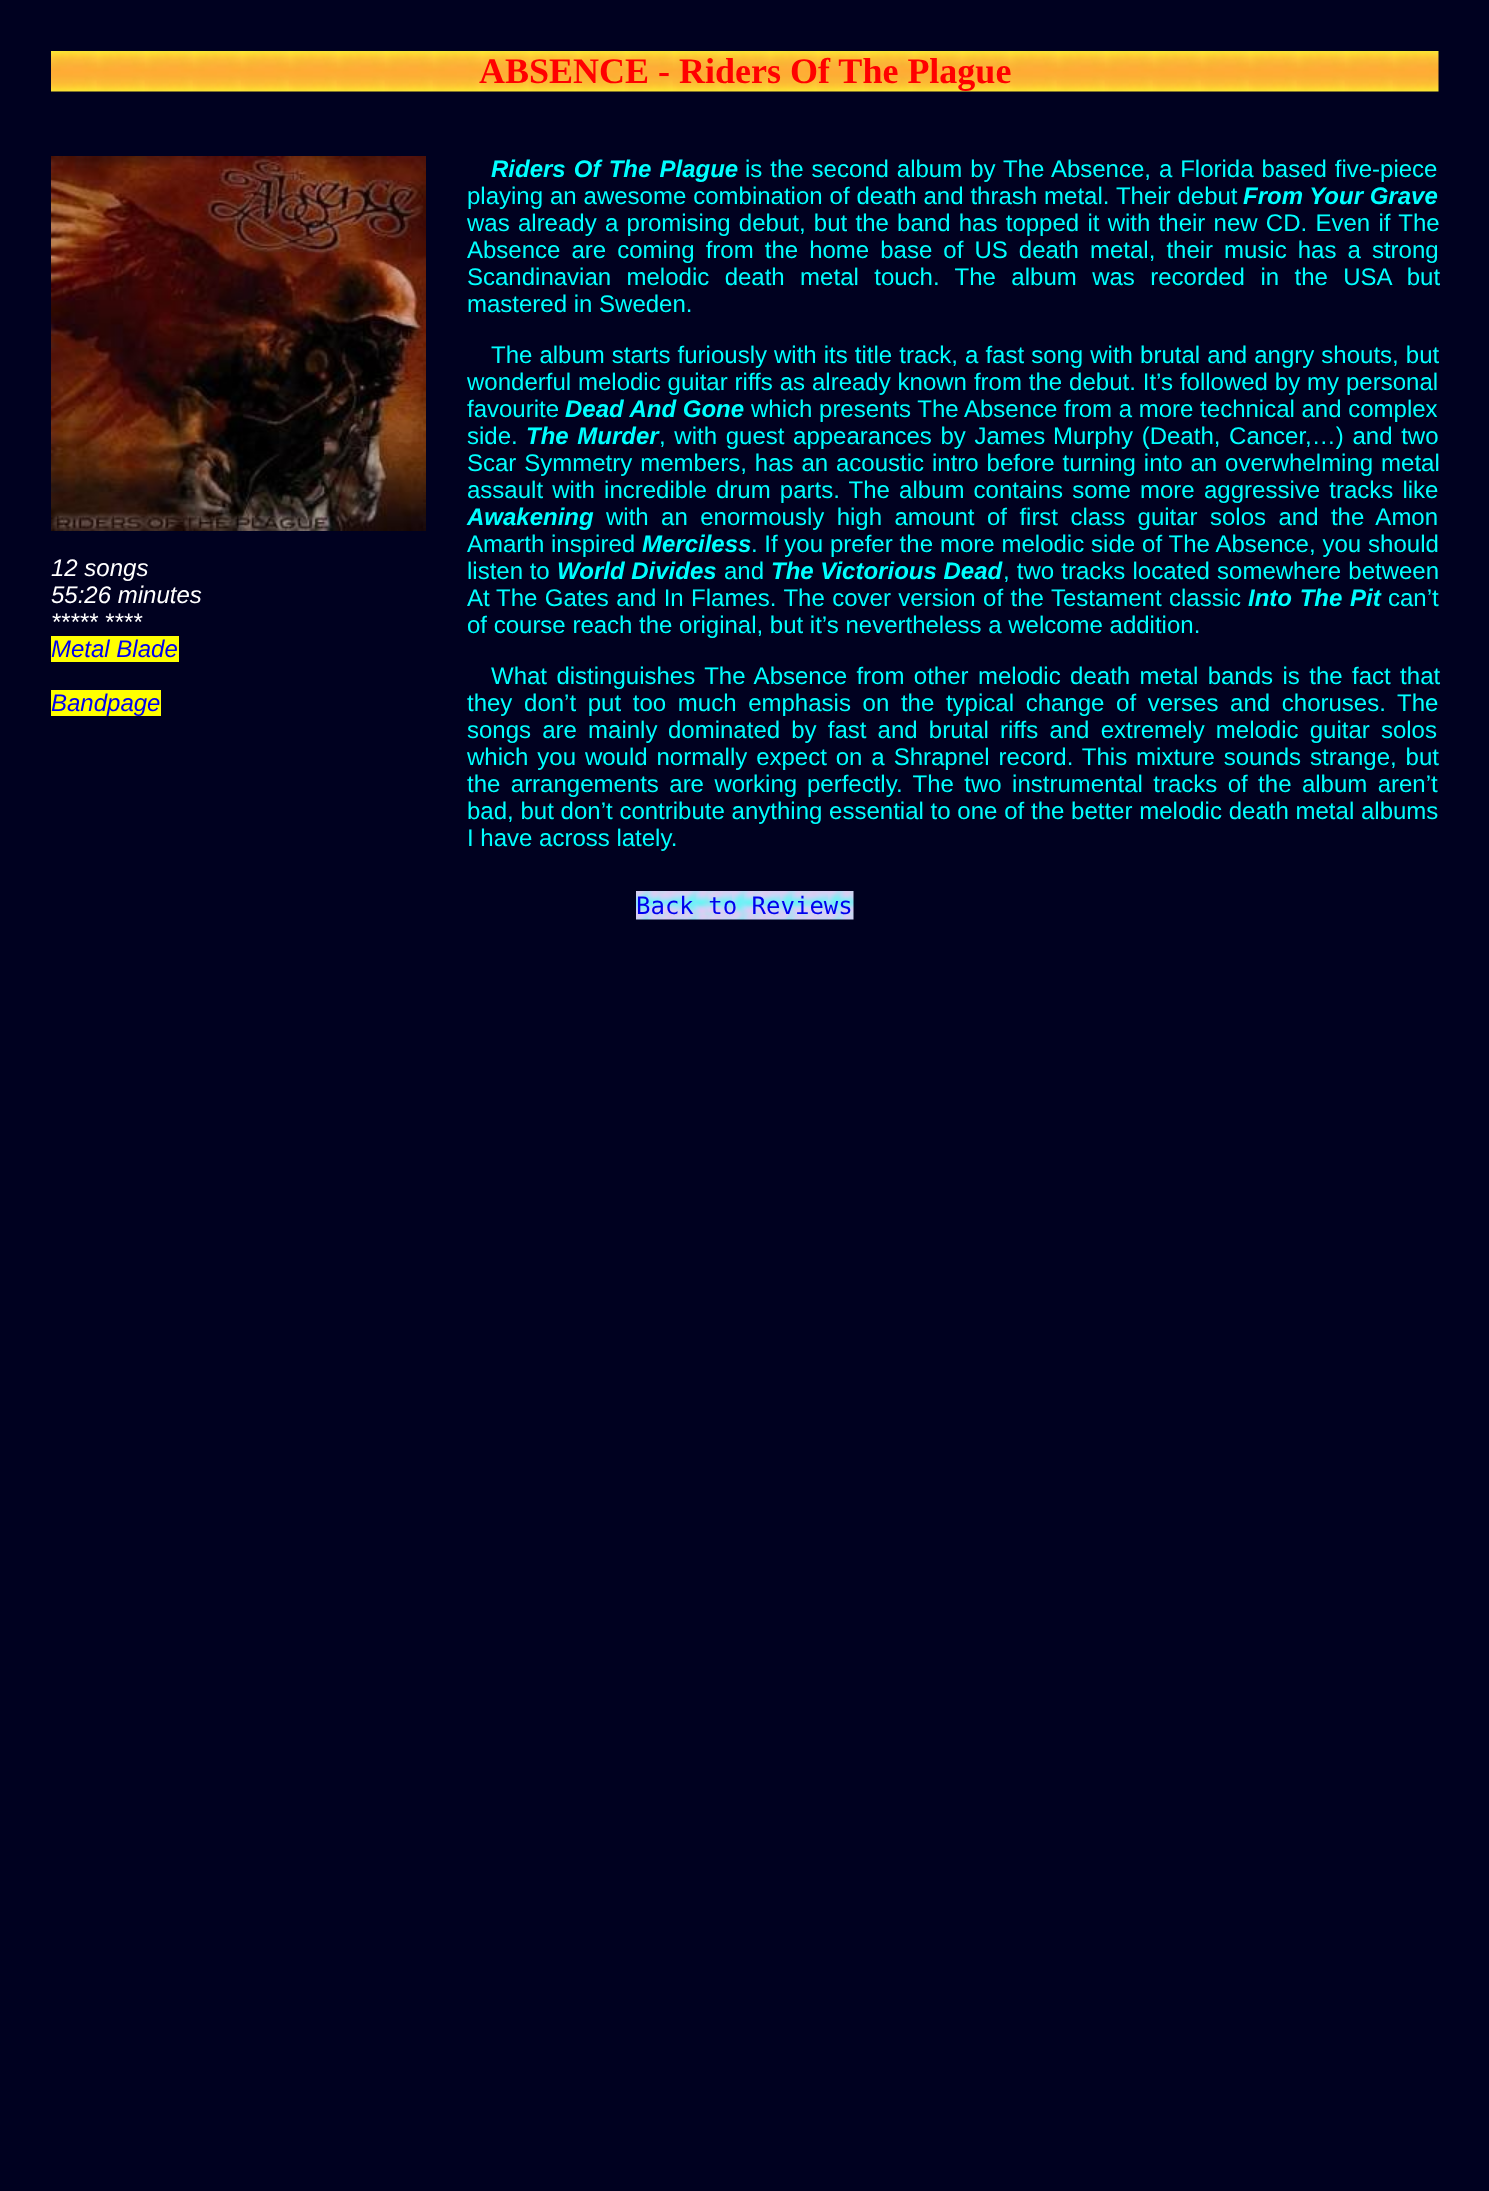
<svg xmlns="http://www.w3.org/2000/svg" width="1489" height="2191">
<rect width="100%" height="100%" fill="#000120"/>
<image x="51" y="51" width="1388" height="41" href="media/1.png"/>
<text x="479" y="83" style="font-family:Liberation Serif;font-size:36px;font-weight:bold;fill:#f00">ABSENCE - Riders Of The Plague</text>
<image x="51" y="156" width="375" height="375" href="media/2.png"/>
<text x="51" y="576" style="font-family:Liberation Sans;font-size:24px;font-style:italic;fill:#fff">12 songs</text>
<text x="51" y="603" style="font-family:Liberation Sans;font-size:24px;font-style:italic;fill:#fff">55:26 minutes</text>
<text x="51" y="630" style="font-family:Liberation Sans;font-size:24px;font-style:italic;fill:#fff">***** ****</text>
<rect x="51" y="636" width="128" height="26" fill="#ff0"/>
<text x="51" y="657" style="font-family:Liberation Sans;font-size:24px;font-style:italic;fill:#00e">Metal Blade</text>
<rect x="51" y="690" width="110" height="26" fill="#ff0"/>
<text x="51" y="711" style="font-family:Liberation Sans;font-size:24px;font-style:italic;fill:#00e">Bandpage</text>
<text x="491" y="177" word-spacing="1.5" style="font-family:Liberation Sans;font-size:24px;font-weight:bold;font-style:italic;fill:#0ff">Riders Of The Plague</text>
<text x="745" y="177" word-spacing="1.25" style="font-family:Liberation Sans;font-size:24px;fill:#0ff">is the second album by The Absence, a Florida based five-piece</text>
<text x="467" y="204" word-spacing="0.25" style="font-family:Liberation Sans;font-size:24px;fill:#0ff">playing an awesome combination of death and thrash metal. Their debut</text>
<text x="1243" y="204" style="font-family:Liberation Sans;font-size:24px;font-weight:bold;font-style:italic;fill:#0ff">From Your Grave</text>
<text x="467" y="231" word-spacing="1.6" style="font-family:Liberation Sans;font-size:24px;fill:#0ff">was already a promising debut, but the band has topped it with their new CD. Even if The</text>
<text x="467" y="258" word-spacing="4.4" style="font-family:Liberation Sans;font-size:24px;fill:#0ff">Absence are coming from the home base of US death metal, their</text>
<text x="1224" y="258" word-spacing="4.4" style="font-family:Liberation Sans;font-size:24px;fill:#0ff">music has a strong</text>
<text x="467" y="285" word-spacing="8.75" style="font-family:Liberation Sans;font-size:24px;fill:#0ff">Scandinavian melodic death metal touch. The album was recorded in the USA but</text>
<text x="467" y="312" style="font-family:Liberation Sans;font-size:24px;fill:#0ff">mastered in Sweden.</text>
<text x="491" y="363" word-spacing="0.4" style="font-family:Liberation Sans;font-size:24px;fill:#0ff">The album starts furiously with its title track, a fast song with brutal and angry shouts, but</text>
<text x="467" y="390" word-spacing="0.25" style="font-family:Liberation Sans;font-size:24px;fill:#0ff">wonderful melodic guitar riffs as already known from the debut. It’s followed by my</text>
<text x="1346" y="390" style="font-family:Liberation Sans;font-size:24px;fill:#0ff">personal</text>
<text x="467" y="417" style="font-family:Liberation Sans;font-size:24px;fill:#0ff">favourite</text>
<text x="565" y="417" style="font-family:Liberation Sans;font-size:24px;font-weight:bold;font-style:italic;fill:#0ff">Dead And Gone</text>
<text x="751" y="417" style="font-family:Liberation Sans;font-size:24px;fill:#0ff">which presents The Absence from a more technical and complex</text>
<text x="467" y="444" style="font-family:Liberation Sans;font-size:24px;fill:#0ff">side.</text>
<text x="526" y="444" word-spacing="2" style="font-family:Liberation Sans;font-size:24px;font-weight:bold;font-style:italic;fill:#0ff">The Murder</text>
<text x="659" y="444" word-spacing="2" style="font-family:Liberation Sans;font-size:24px;fill:#0ff">, with guest appearances by James</text>
<text x="1053" y="444" word-spacing="2" style="font-family:Liberation Sans;font-size:24px;fill:#0ff">Murphy (Death, Cancer,…) and two</text>
<text x="467" y="471" word-spacing="1.25" style="font-family:Liberation Sans;font-size:24px;fill:#0ff">Scar Symmetry members, has an acoustic intro before turning into an overwhelming metal</text>
<text x="467" y="498" word-spacing="2.5" style="font-family:Liberation Sans;font-size:24px;fill:#0ff">assault with incredible drum parts. The album contains some more</text>
<text x="1204" y="498" word-spacing="2.5" style="font-family:Liberation Sans;font-size:24px;fill:#0ff">aggressive tracks like</text>
<text x="467" y="525" style="font-family:Liberation Sans;font-size:24px;font-weight:bold;font-style:italic;fill:#0ff">Awakening</text>
<text x="606" y="525" word-spacing="5.75" style="font-family:Liberation Sans;font-size:24px;fill:#0ff">with an enormously high amount of first class guitar solos and the Amon</text>
<text x="467" y="552" style="font-family:Liberation Sans;font-size:24px;fill:#0ff">Amarth inspired</text>
<text x="642" y="552" style="font-family:Liberation Sans;font-size:24px;font-weight:bold;font-style:italic;fill:#0ff">Merciless</text>
<text x="751" y="552" style="font-family:Liberation Sans;font-size:24px;fill:#0ff">. If you</text>
<text x="830" y="552" word-spacing="0.25" style="font-family:Liberation Sans;font-size:24px;fill:#0ff">prefer the more melodic side of The Absence, you should</text>
<text x="467" y="579" style="font-family:Liberation Sans;font-size:24px;fill:#0ff">listen to</text>
<text x="557" y="579" style="font-family:Liberation Sans;font-size:24px;font-weight:bold;font-style:italic;fill:#0ff">World Divides</text>
<text x="724" y="579" style="font-family:Liberation Sans;font-size:24px;fill:#0ff">and</text>
<text x="771" y="579" style="font-family:Liberation Sans;font-size:24px;font-weight:bold;font-style:italic;fill:#0ff">The Victorious Dead</text>
<text x="1003" y="579" word-spacing="0.5" style="font-family:Liberation Sans;font-size:24px;fill:#0ff">, two tracks located somewhere between</text>
<text x="467" y="606" style="font-family:Liberation Sans;font-size:24px;fill:#0ff">At</text>
<text x="496" y="606" word-spacing="0.75" style="font-family:Liberation Sans;font-size:24px;fill:#0ff">The Gates and In Flames. The cover version of the Testament classic</text>
<text x="1248" y="606" word-spacing="1" style="font-family:Liberation Sans;font-size:24px;font-weight:bold;font-style:italic;fill:#0ff">Into The Pit</text>
<text x="1388" y="606" style="font-family:Liberation Sans;font-size:24px;fill:#0ff">can’t</text>
<text x="467" y="633" style="font-family:Liberation Sans;font-size:24px;fill:#0ff">of course reach the original, but it’s nevertheless a welcome addition.</text>
<text x="491" y="684" word-spacing="2.75" style="font-family:Liberation Sans;font-size:24px;fill:#0ff">What distinguishes The Absence from other melodic death metal bands is the fact that</text>
<text x="467" y="711" word-spacing="5" style="font-family:Liberation Sans;font-size:24px;fill:#0ff">they don’t put too much emphasis on the typical change of verses and choruses. The</text>
<text x="467" y="738" word-spacing="4.5" style="font-family:Liberation Sans;font-size:24px;fill:#0ff">songs are mainly</text>
<text x="668" y="738" word-spacing="4.5" style="font-family:Liberation Sans;font-size:24px;fill:#0ff">dominated by fast and brutal riffs and extremely melodic guitar solos</text>
<text x="467" y="765" word-spacing="2.25" style="font-family:Liberation Sans;font-size:24px;fill:#0ff">which you would normally expect on a Shrapnel record. This mixture sounds strange, but</text>
<text x="467" y="792" word-spacing="3.75" style="font-family:Liberation Sans;font-size:24px;fill:#0ff">the arrangements are working</text>
<text x="807" y="792" word-spacing="3.75" style="font-family:Liberation Sans;font-size:24px;fill:#0ff">perfectly. The two instrumental tracks of the album aren’t</text>
<text x="467" y="819" word-spacing="0.1" style="font-family:Liberation Sans;font-size:24px;fill:#0ff">bad, but don’t contribute anything essential to one of the better melodic death metal albums</text>
<text x="467" y="846" style="font-family:Liberation Sans;font-size:24px;fill:#0ff">I have across lately.</text>
<image x="636" y="891" width="218" height="29" href="media/3.png"/>
<text x="636" y="914" style="font-family:DejaVu Sans Mono;font-size:24px;fill:#00e">Back to Reviews</text>
</svg>
